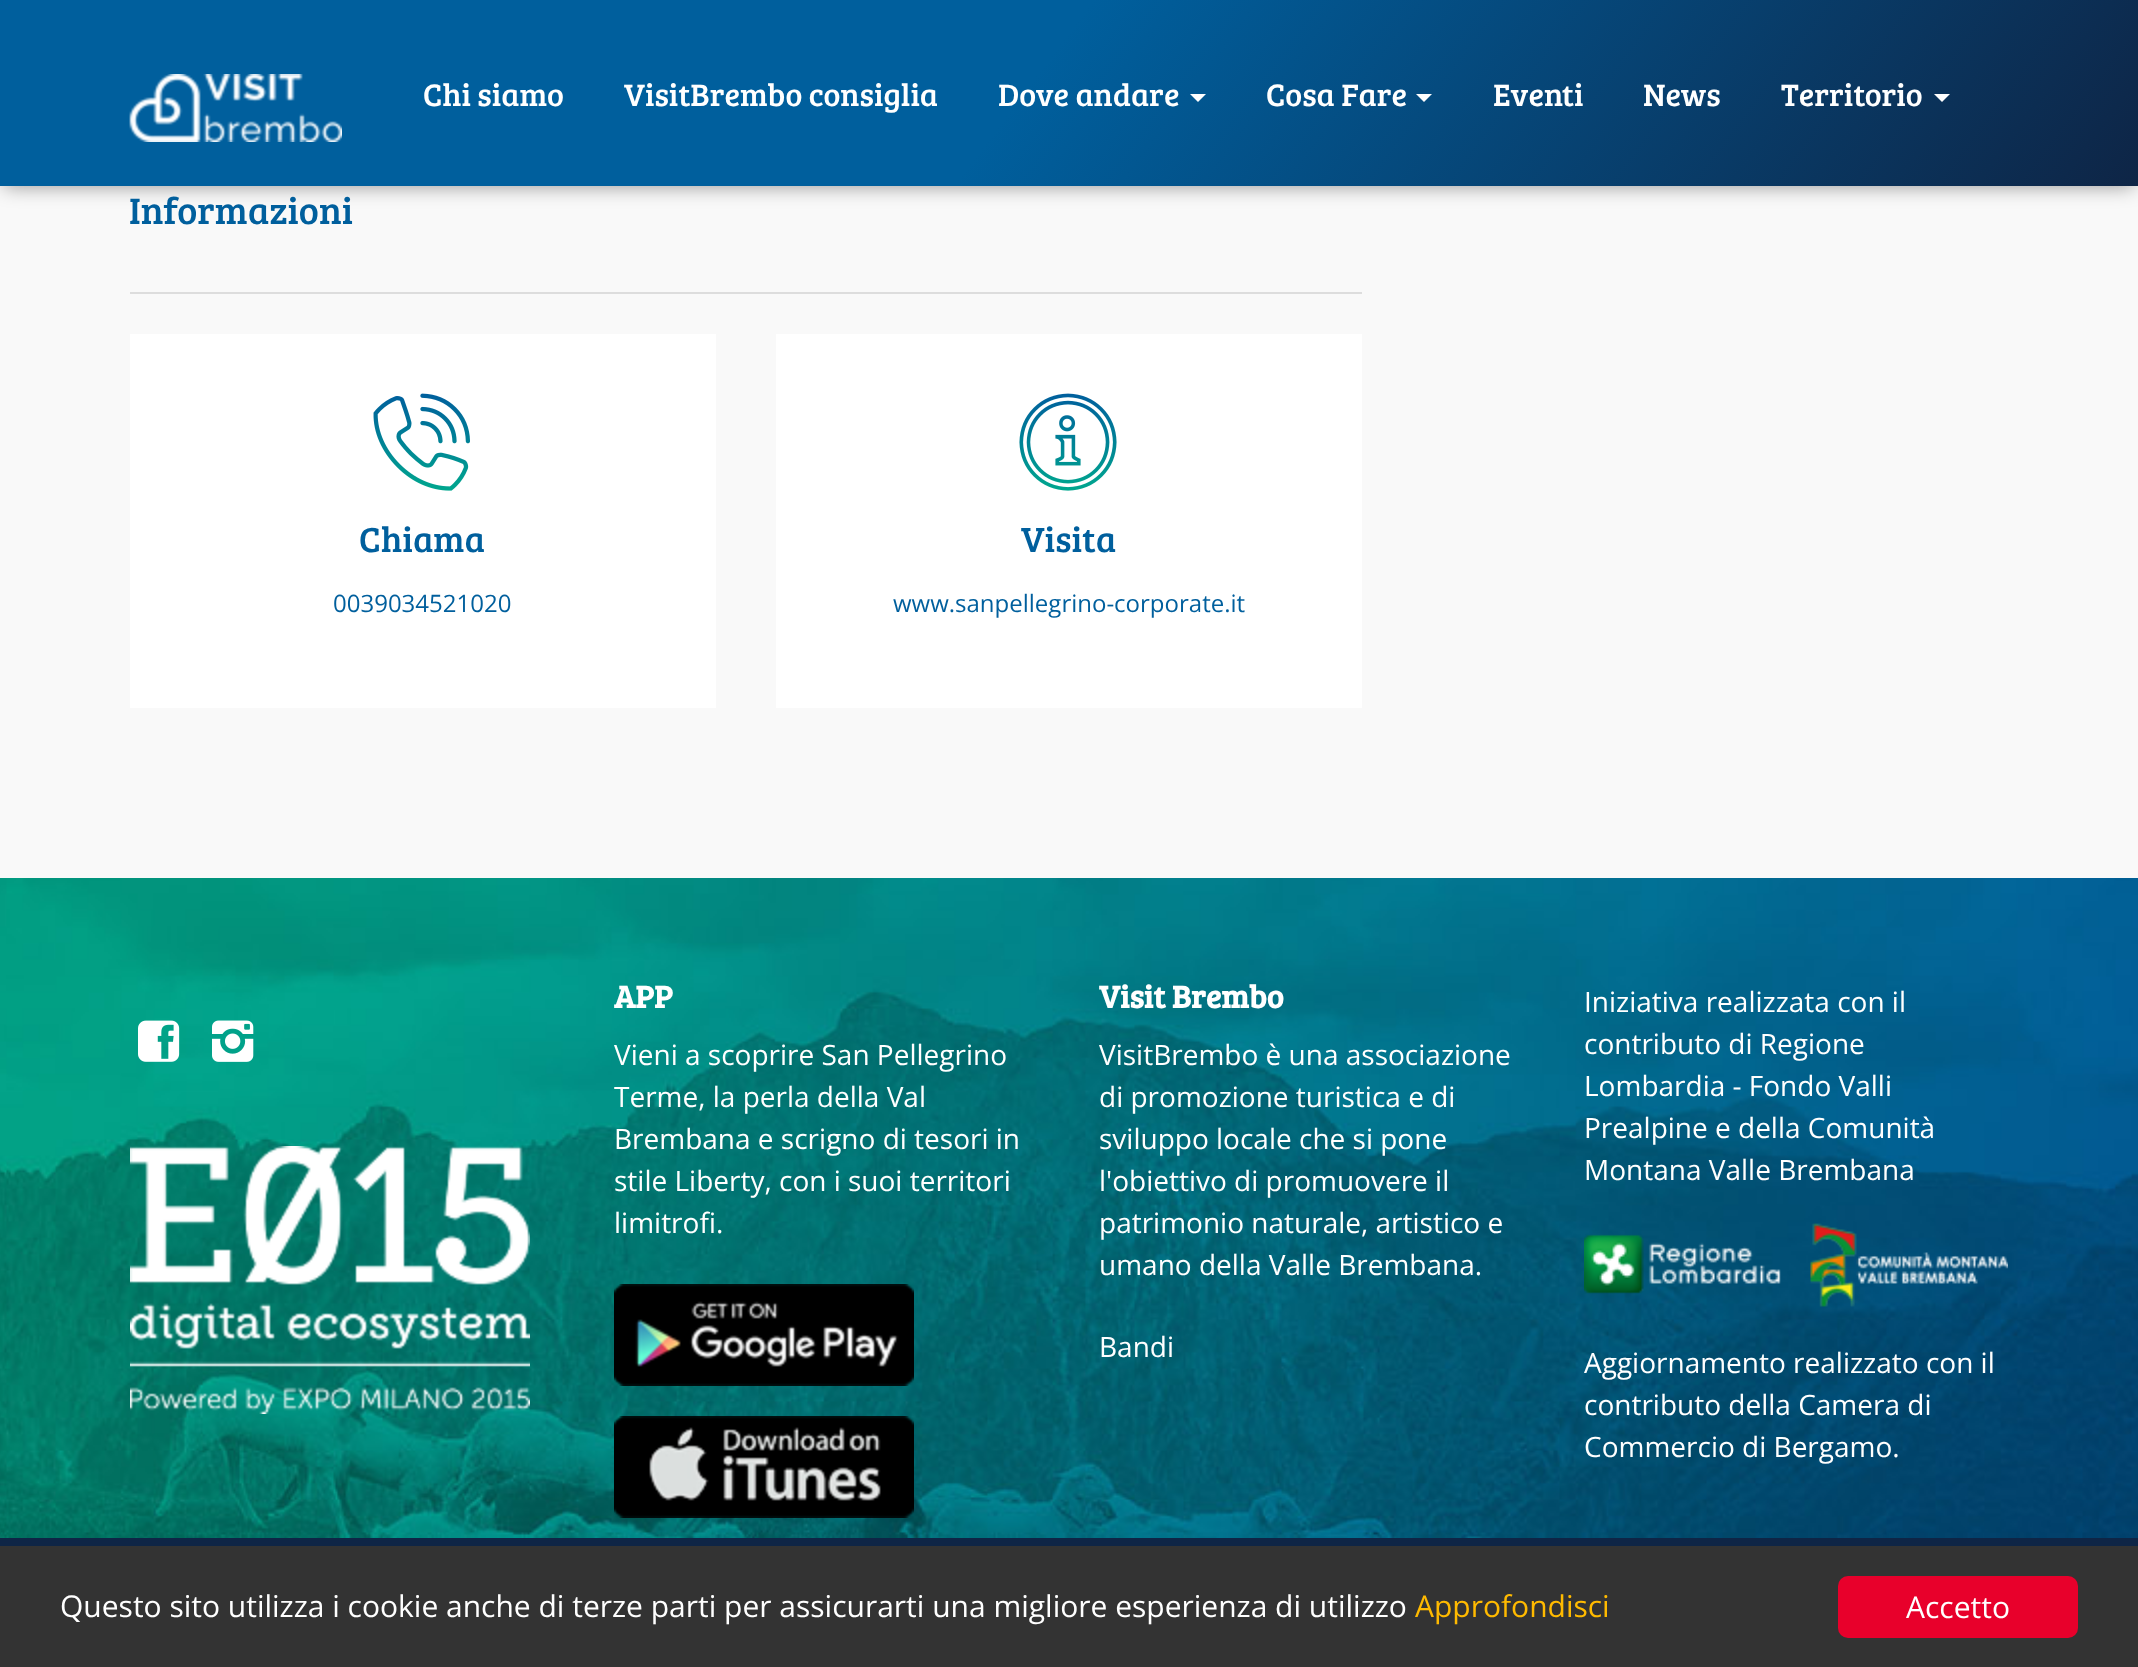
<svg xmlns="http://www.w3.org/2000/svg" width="2138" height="1667">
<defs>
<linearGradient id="g1" gradientUnits="userSpaceOnUse" x1="342" y1="-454" x2="1796" y2="640"><stop offset="0.48" stop-color="#005f9d"/><stop offset="1" stop-color="#0e2546"/></linearGradient>
</defs>
<rect width="100%" height="100%" fill="#f9f9f9"/>
<rect x="4" y="8" width="2130" height="178" fill="#00000069" filter="blur(10px)"/>
<rect width="2138" height="186" fill="url(#g1)"/>
<image x="129" y="74" width="213" height="68" href="media/1.png"/>
<text x="423" y="106" style="font-family:Bree Serif;font-size:32px;fill:#fff">Chi siamo</text>
<text x="624" y="106" style="font-family:Bree Serif;font-size:32px;fill:#fff">VisitBrembo consiglia</text>
<text x="998" y="106" style="font-family:Bree Serif;font-size:32px;fill:#fff">Dove andare</text>
<path d="M1190 94h16l-8 8z" fill="#fff"/>
<text x="1266" y="106" style="font-family:Bree Serif;font-size:32px;fill:#fff">Cosa Fare</text>
<path d="M1416 94h16l-8 8z" fill="#fff"/>
<text x="1493" y="106" style="font-family:Bree Serif;font-size:32px;fill:#fff">Eventi</text>
<text x="1643" y="106" style="font-family:Bree Serif;font-size:32px;fill:#fff">News</text>
<text x="1781" y="106" style="font-family:Bree Serif;font-size:32px;fill:#fff">Territorio</text>
<path d="M1934 94h16l-8 8z" fill="#fff"/>
<text x="129" y="224" style="font-family:Bree Serif;font-size:38px;fill:#005f9d">Informazioni</text>
<rect x="130" y="292" width="1232" height="2" fill="#ddd"/>
<rect x="130" y="334" width="586" height="374" fill="#fff"/>
<image x="373" y="393" width="97" height="98" href="media/2.png"/>
<text x="359" y="552" style="font-family:Bree Serif;font-size:36px;fill:#005f9d">Chiama</text>
<text x="333" y="612" style="font-family:Open Sans;font-size:24px;fill:#005f9d">0039034521020</text>
<rect x="776" y="334" width="586" height="374" fill="#fff"/>
<image x="1019" y="393" width="98" height="98" href="media/3.png"/>
<text x="1021" y="552" style="font-family:Bree Serif;font-size:36px;fill:#005f9d">Visita</text>
<text x="893" y="612" style="font-family:Open Sans;font-size:24px;fill:#005f9d">www.sanpellegrino-corporate.it</text>
<image x="0" y="878" width="2138" height="660" href="media/4.png"/>
<image x="138" y="1020" width="42" height="42" href="media/5.png"/>
<image x="212" y="1020" width="42" height="42" href="media/6.png"/>
<image x="130" y="1146" width="400" height="268" href="media/7.png"/>
<text x="614" y="1008" style="font-family:Bree Serif;font-size:32px;font-weight:bold;fill:#fff">APP</text>
<text x="614" y="1065" style="font-family:Open Sans;font-size:28px;fill:#fff">Vieni a scoprire San Pellegrino</text>
<text x="614" y="1107" style="font-family:Open Sans;font-size:28px;fill:#fff">Terme, la perla della Val</text>
<text x="614" y="1149" style="font-family:Open Sans;font-size:28px;fill:#fff">Brembana e scrigno di tesori in</text>
<text x="614" y="1191" style="font-family:Open Sans;font-size:28px;fill:#fff">stile Liberty, con i suoi territori</text>
<text x="614" y="1233" style="font-family:Open Sans;font-size:28px;fill:#fff">limitrofi.</text>
<image x="614" y="1284" width="300" height="102" href="media/8.png"/>
<image x="614" y="1416" width="300" height="102" href="media/9.png"/>
<text x="1099" y="1008" style="font-family:Bree Serif;font-size:32px;font-weight:bold;fill:#fff">Visit Brembo</text>
<text x="1099" y="1065" style="font-family:Open Sans;font-size:28px;fill:#fff">VisitBrembo è una associazione</text>
<text x="1099" y="1107" style="font-family:Open Sans;font-size:28px;fill:#fff">di promozione turistica e di</text>
<text x="1099" y="1149" style="font-family:Open Sans;font-size:28px;fill:#fff">sviluppo locale che si pone</text>
<text x="1099" y="1191" style="font-family:Open Sans;font-size:28px;fill:#fff">l'obiettivo di promuovere il</text>
<text x="1099" y="1233" style="font-family:Open Sans;font-size:28px;fill:#fff">patrimonio naturale, artistico e</text>
<text x="1099" y="1275" style="font-family:Open Sans;font-size:28px;fill:#fff">umano della Valle Brembana.</text>
<text x="1099" y="1357" style="font-family:Open Sans;font-size:28px;fill:#fff">Bandi</text>
<text x="1584" y="1012" style="font-family:Open Sans;font-size:28px;fill:#fff">Iniziativa realizzata con il</text>
<text x="1584" y="1054" style="font-family:Open Sans;font-size:28px;fill:#fff">contributo di Regione</text>
<text x="1584" y="1096" style="font-family:Open Sans;font-size:28px;fill:#fff">Lombardia - Fondo Valli</text>
<text x="1584" y="1138" style="font-family:Open Sans;font-size:28px;fill:#fff">Prealpine e della Comunità</text>
<text x="1584" y="1180" style="font-family:Open Sans;font-size:28px;fill:#fff">Montana Valle Brembana</text>
<image x="1584" y="1223" width="424" height="84" href="media/10.png"/>
<text x="1584" y="1373" style="font-family:Open Sans;font-size:28px;fill:#fff">Aggiornamento realizzato con il</text>
<text x="1584" y="1415" style="font-family:Open Sans;font-size:28px;fill:#fff">contributo della Camera di</text>
<text x="1584" y="1457" style="font-family:Open Sans;font-size:28px;fill:#fff">Commercio di Bergamo.</text>
<rect y="1538" width="2138" height="8" fill="#0e2546"/>
<rect y="1546" width="2138" height="121" fill="#333"/>
<text x="60" y="1617" style="font-family:Open Sans;font-size:30px;fill:#fff">Questo sito utilizza i cookie anche di terze parti per assicurarti una migliore esperienza di utilizzo</text>
<text x="1415" y="1617" style="font-family:Open Sans;font-size:30px;fill:#ffba00">Approfondisci</text>
<rect x="1838" y="1576" width="240" height="62" rx="10" fill="#e8002b"/>
<text x="1906" y="1618" style="font-family:Open Sans;font-size:30px;fill:#fff">Accetto</text>
</svg>
